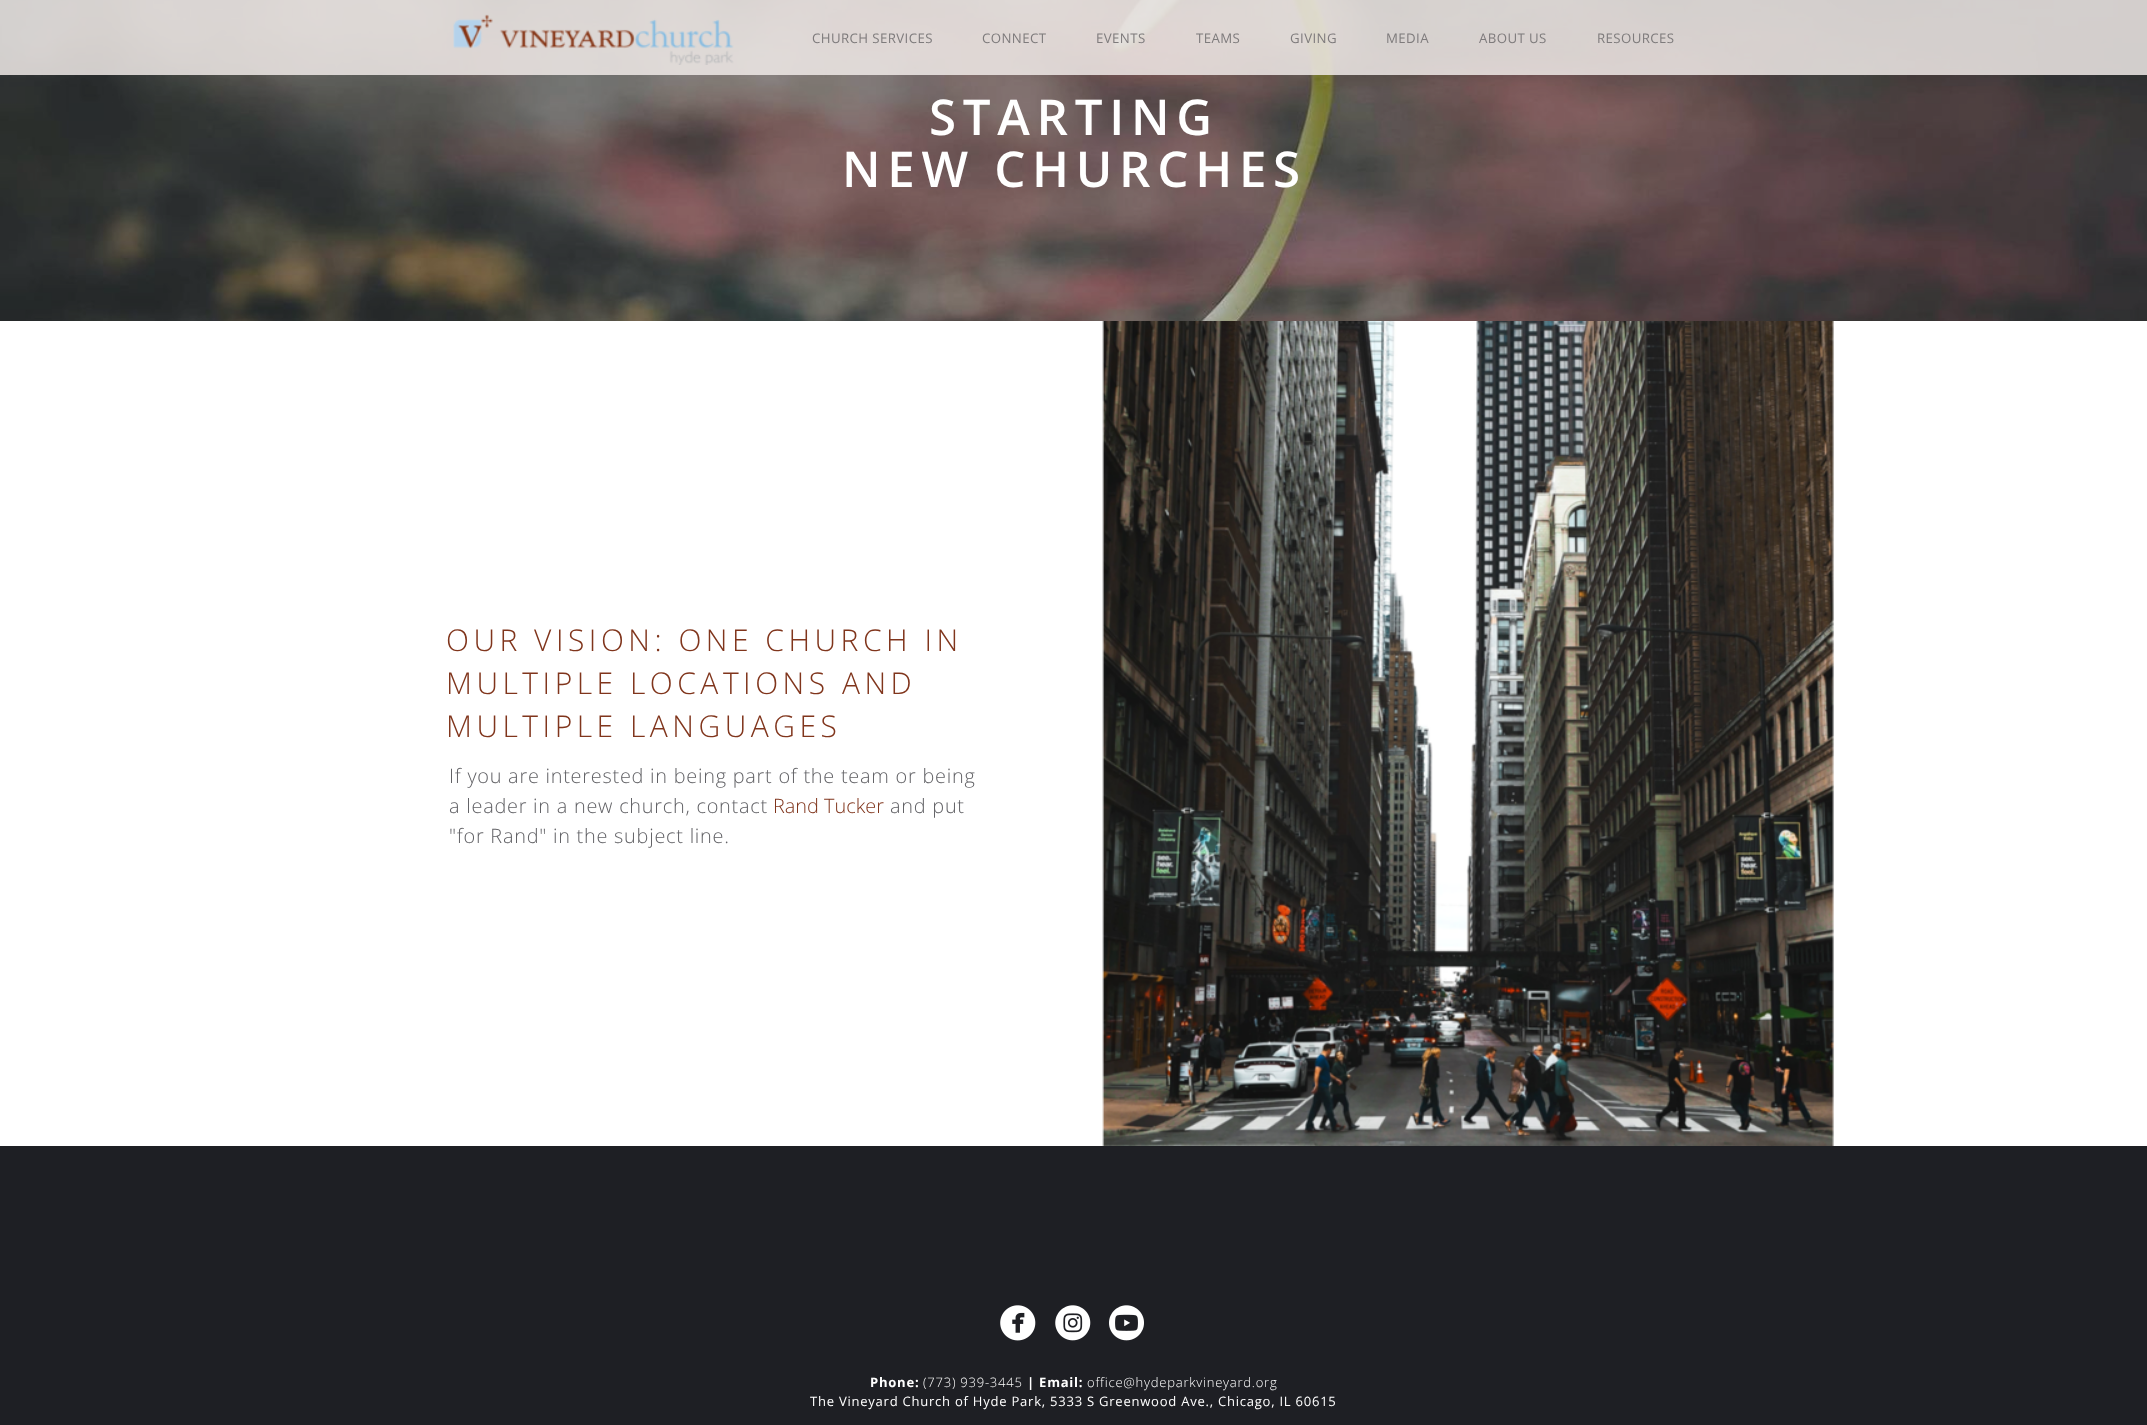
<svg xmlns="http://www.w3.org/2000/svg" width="2147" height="1425">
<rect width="100%" height="100%" fill="#1e1f24"/>
<image x="0" y="0" width="2147" height="321" href="media/2.png"/>
<rect width="2147" height="75" fill="#f0eae7d9"/>
<image x="453" y="14" width="281" height="51" href="media/1.png"/>
<text x="812" y="43" style="font-family:Open Sans;font-size:13.25px;letter-spacing:0.4px;fill:#7e7b7c">CHURCH SERVICES</text>
<text x="982" y="43" style="font-family:Open Sans;font-size:13.25px;letter-spacing:0.4px;fill:#7e7b7c">CONNECT</text>
<text x="1096" y="43" style="font-family:Open Sans;font-size:13.25px;letter-spacing:0.4px;fill:#7e7b7c">EVENTS</text>
<text x="1196" y="43" style="font-family:Open Sans;font-size:13.25px;letter-spacing:0.4px;fill:#7e7b7c">TEAMS</text>
<text x="1290" y="43" style="font-family:Open Sans;font-size:13.25px;letter-spacing:0.4px;fill:#7e7b7c">GIVING</text>
<text x="1386" y="43" style="font-family:Open Sans;font-size:13.25px;letter-spacing:0.4px;fill:#7e7b7c">MEDIA</text>
<text x="1479" y="43" style="font-family:Open Sans;font-size:13.25px;letter-spacing:0.4px;fill:#7e7b7c">ABOUT US</text>
<text x="1597" y="43" style="font-family:Open Sans;font-size:13.25px;letter-spacing:0.4px;fill:#7e7b7c">RESOURCES</text>
<text x="929" y="135" style="font-family:Open Sans;font-size:49.25px;font-weight:600;letter-spacing:6.7px;fill:#fff">STARTING</text>
<text x="842" y="187" style="font-family:Open Sans;font-size:49.25px;font-weight:600;letter-spacing:6.7px;fill:#fff">NEW CHURCHES</text>
<rect y="321" width="2147" height="825" fill="#fff"/>
<text x="446" y="651" style="font-family:Open Sans;font-size:30px;font-weight:300;letter-spacing:4.5px;fill:#80351c">OUR VISION: ONE CHURCH IN</text>
<text x="446" y="694" style="font-family:Open Sans;font-size:30px;font-weight:300;letter-spacing:4.5px;fill:#80351c">MULTIPLE LOCATIONS AND</text>
<text x="446" y="737" style="font-family:Open Sans;font-size:30px;font-weight:300;letter-spacing:4.5px;fill:#80351c">MULTIPLE LANGUAGES</text>
<text x="449" y="783" style="font-family:Open Sans;font-size:19.9px;font-weight:300;letter-spacing:0.75px;fill:#626266">If you are interested in being part of the team or being</text>
<text x="449" y="813" style="font-family:Open Sans;font-size:19.9px;font-weight:300;letter-spacing:0.75px;fill:#626266">a leader in a new church, contact</text>
<text x="773" y="813" style="font-family:Open Sans;font-size:19.9px;font-weight:300;fill:#80351c">Rand Tucker</text>
<text x="890" y="813" style="font-family:Open Sans;font-size:19.9px;font-weight:300;letter-spacing:0.75px;fill:#626266">and put</text>
<text x="449" y="843" style="font-family:Open Sans;font-size:19.9px;font-weight:300;letter-spacing:0.75px;fill:#626266">"for Rand" in the subject line.</text>
<image x="1102" y="321" width="732" height="825" href="media/3.png"/>
<image x="1000" y="1305" width="36" height="36" href="media/4.png"/>
<image x="1055" y="1305" width="36" height="36" href="media/5.png"/>
<image x="1109" y="1305" width="35" height="36" href="media/6.png"/>
<text x="870" y="1387" style="font-family:Open Sans;font-size:13.05px;font-weight:bold;letter-spacing:0.75px;fill:#fff">Phone:</text>
<text x="923" y="1387" style="font-family:Open Sans;font-size:13.05px;font-weight:300;letter-spacing:0.75px;fill:#fff">(773) 939-3445</text>
<text x="1027" y="1387" style="font-family:Open Sans;font-size:13.05px;font-weight:bold;letter-spacing:0.75px;fill:#fff">| Email:</text>
<text x="1087" y="1387" style="font-family:Open Sans;font-size:13.05px;font-weight:300;letter-spacing:0.75px;fill:#fff">office@hydeparkvineyard.org</text>
<text x="810" y="1406" style="font-family:Open Sans;font-size:13.05px;letter-spacing:0.75px;fill:#fff">The Vineyard Church of Hyde Park, 5333 S Greenwood Ave., Chicago, IL 60615</text>
</svg>
